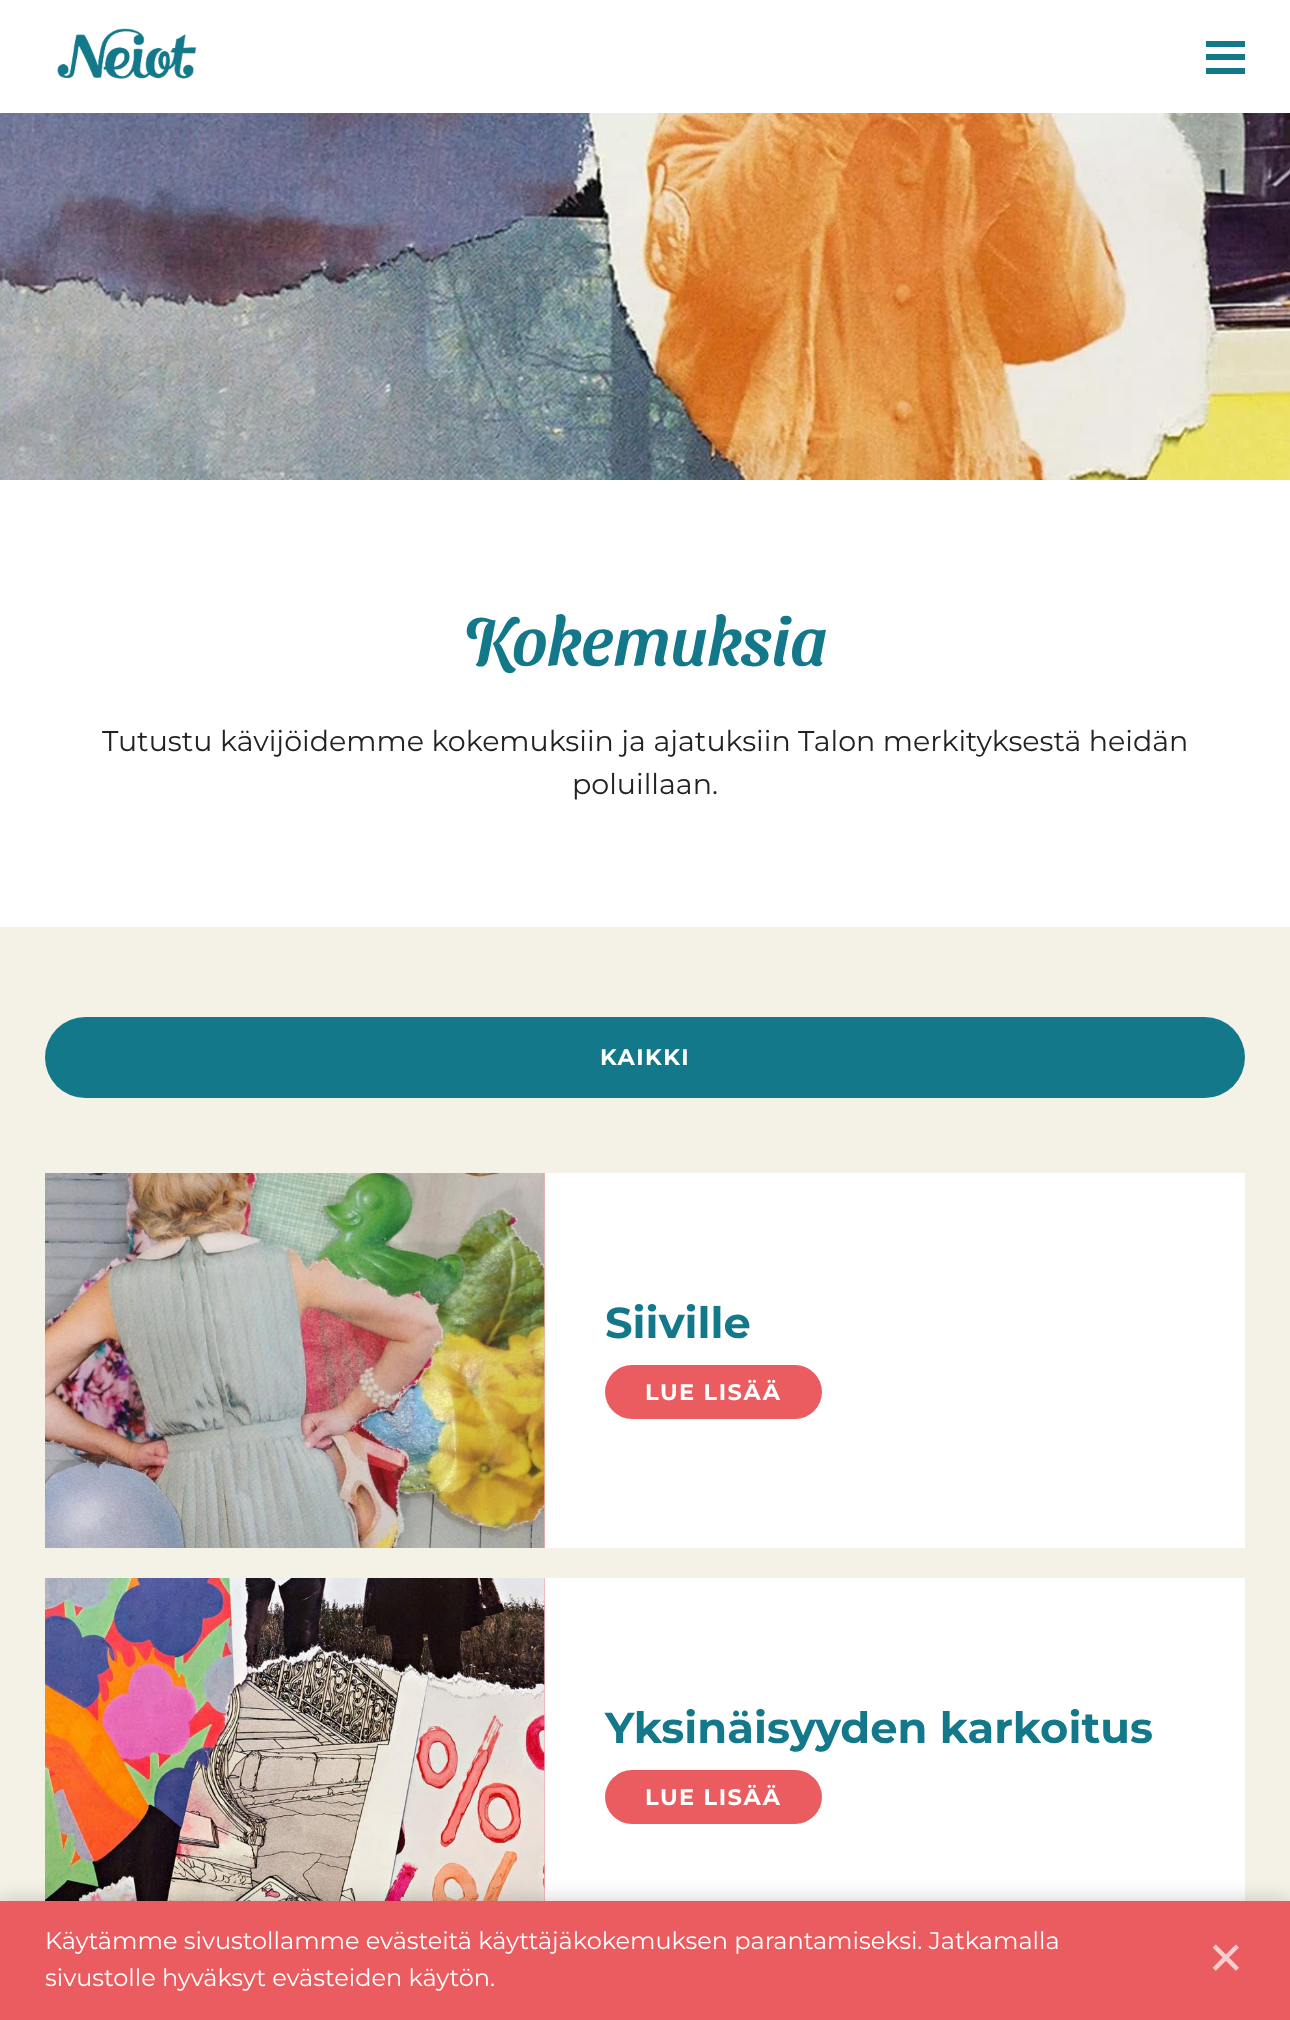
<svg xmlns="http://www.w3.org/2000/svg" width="1290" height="2020">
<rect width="100%" height="100%" fill="#fff"/>
<image x="57" y="28" width="140" height="51" href="media/1.png"/>
<rect x="1206" y="41" width="39" height="6" fill="#13788a"/>
<rect x="1206" y="54" width="39" height="6" fill="#13788a"/>
<rect x="1206" y="68" width="39" height="6" fill="#13788a"/>
<image x="0" y="113" width="1290" height="367" href="media/2.png"/>
<text x="463" y="665" style="font-family:Sansita Swashed;font-size:67.5px;font-weight:500;fill:#13788a">Kokemuksia</text>
<text x="102" y="751" style="font-family:Montserrat;font-size:28.5px;fill:#222">Tutustu kävijöidemme kokemuksiin ja ajatuksiin Talon merkityksestä heidän</text>
<text x="572" y="794" style="font-family:Montserrat;font-size:28.5px;fill:#222">poluillaan.</text>
<rect y="927" width="1290" height="974" fill="#f4f1e7"/>
<rect x="45" y="1017" width="1200" height="81" rx="40.5" fill="#13788a"/>
<text x="600" y="1065" style="font-family:Montserrat;font-size:22.5px;font-weight:bold;letter-spacing:1.5px;fill:#fff">KAIKKI</text>
<rect x="545" y="1173" width="700" height="375" fill="#fff"/>
<rect x="544" y="1173" width="1" height="375" fill="#f6afb1"/>
<image x="45" y="1173" width="500" height="375" href="media/3.png"/>
<text x="605" y="1338" style="font-family:Montserrat;font-size:43.25px;font-weight:bold;fill:#13788a">Siiville</text>
<rect x="605" y="1365" width="217" height="54" rx="27" fill="#ea5c60"/>
<text x="645" y="1400" style="font-family:Montserrat;font-size:22.5px;font-weight:bold;letter-spacing:1.5px;fill:#fff">LUE LISÄÄ</text>
<rect x="545" y="1578" width="700" height="323" fill="#fff"/>
<rect x="544" y="1578" width="1" height="323" fill="#f6afb1"/>
<image x="45" y="1578" width="500" height="323" href="media/4.png"/>
<text x="605" y="1743" style="font-family:Montserrat;font-size:43.25px;font-weight:bold;fill:#13788a">Yksinäisyyden karkoitus</text>
<rect x="605" y="1770" width="217" height="54" rx="27" fill="#ea5c60"/>
<text x="645" y="1805" style="font-family:Montserrat;font-size:22.5px;font-weight:bold;letter-spacing:1.5px;fill:#fff">LUE LISÄÄ</text>
<rect y="1901" width="1290" height="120" fill="#00000033" filter="blur(11px)"/>
<rect y="1901" width="1290" height="119" fill="#ea5c60"/>
<text x="45" y="1949" style="font-family:Montserrat;font-size:24px;fill:#fff">Käytämme sivustollamme evästeitä käyttäjäkokemuksen parantamiseksi. Jatkamalla</text>
<text x="45" y="1986" style="font-family:Montserrat;font-size:24px;fill:#fff">sivustolle hyväksyt evästeiden käytön.</text>
<text x="1207" y="1974" style="font-family:DejaVu Sans;font-size:45px;fill:#f9cecf">✕</text>
</svg>
